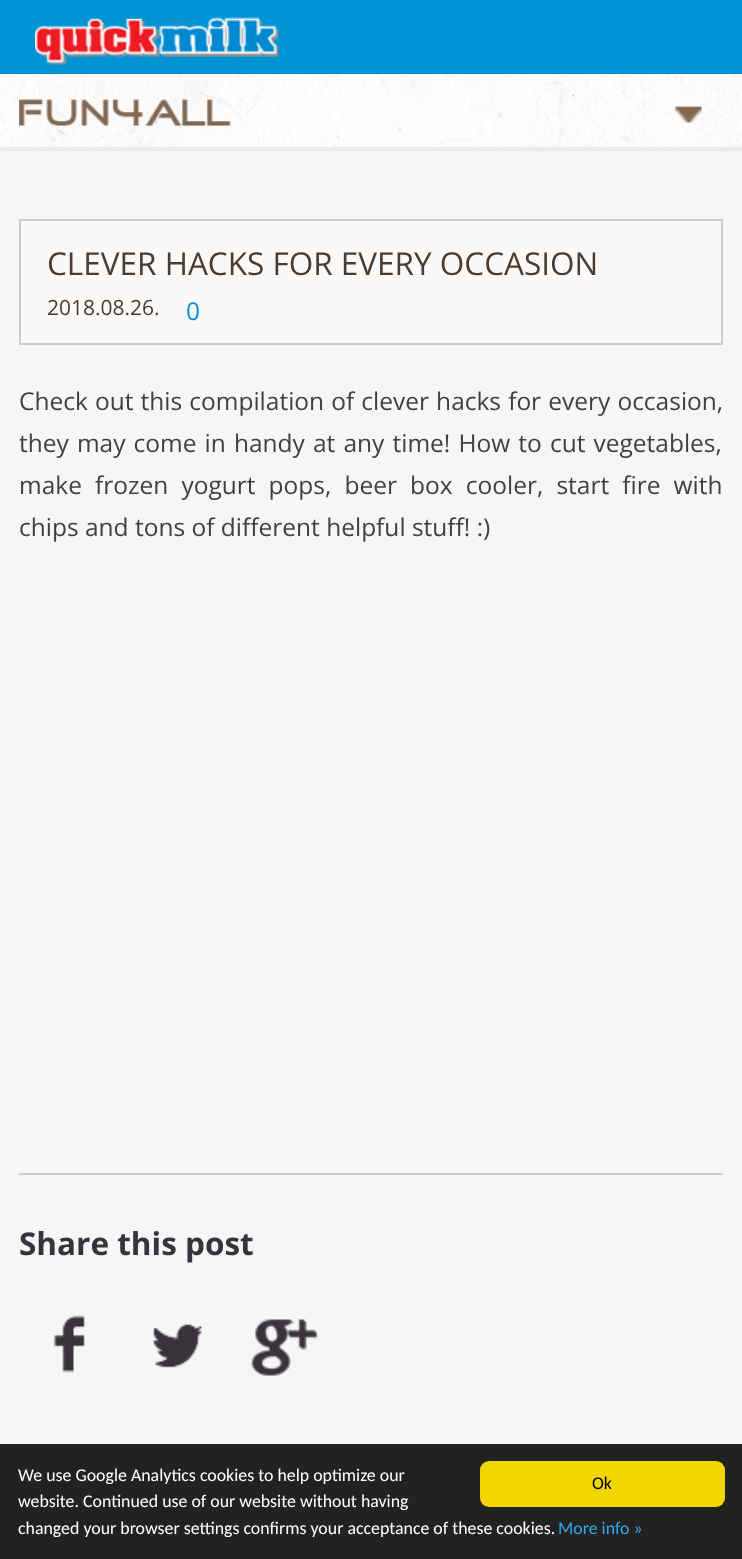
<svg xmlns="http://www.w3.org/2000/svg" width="742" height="1559">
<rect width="100%" height="100%" fill="#f6f6f6"/>
<rect width="742" height="74" fill="#0093d4"/>
<image x="35" y="17" width="244" height="48" href="media/1.png"/>
<image x="0" y="74" width="742" height="73" href="media/2.png"/>
<rect y="147" width="742" height="4" fill="#eaeaea"/>
<image x="19" y="99" width="213" height="27" href="media/3.png"/>
<image x="675" y="106" width="27" height="18" href="media/4.png"/>
<rect x="20" y="220" width="702" height="124" fill="#fbf9f8" stroke="#cfcbcb" stroke-width="2"/>
<text x="47" y="275" style="font-family:Open Sans;font-size:31.5px;fill:#4b3c2f">CLEVER HACKS FOR EVERY OCCASION</text>
<text x="47" y="315" style="font-family:Open Sans;font-size:21px;fill:#4b3c2f">2018.08.26.</text>
<text x="186" y="320" style="font-family:Open Sans;font-size:24.5px;fill:#0093d4">0</text>
<text x="19" y="410" word-spacing="0.75" style="font-family:Open Sans;font-size:24.5px;fill:#403f46">Check out this compilation of clever hacks for every occasion,</text>
<text x="19" y="452" word-spacing="1.75" style="font-family:Open Sans;font-size:24.5px;fill:#403f46">they may come in handy at any time! How to cut vegetables,</text>
<text x="19" y="494" word-spacing="6.75" style="font-family:Open Sans;font-size:24.5px;fill:#403f46">make frozen yogurt pops, beer box cooler, start fire with</text>
<text x="19" y="536" style="font-family:Open Sans;font-size:24.5px;fill:#403f46">chips and tons of different helpful stuff! :)</text>
<rect x="19" y="1173" width="704" height="2" fill="#cbcbcb"/>
<text x="19" y="1255" style="font-family:Open Sans;font-size:31.5px;font-weight:bold;fill:#38323b">Share this post</text>
<image x="53" y="1315" width="32" height="58" href="media/5.png"/>
<image x="152" y="1324" width="50" height="45" href="media/6.png"/>
<image x="251" y="1319" width="67" height="57" href="media/7.png"/>
<rect y="1444" width="742" height="115" fill="#222"/>
<text x="18" y="1481" style="font-family:Carlito;font-size:17.85px;fill:#fff">We use Google Analytics cookies to help optimize our</text>
<text x="18" y="1507" style="font-family:Carlito;font-size:17.85px;fill:#fff">website. Continued use of our website without having</text>
<text x="18" y="1534" style="font-family:Carlito;font-size:17.85px;fill:#fff">changed your browser settings confirms your acceptance of these cookies.</text>
<text x="558" y="1534" style="font-family:Carlito;font-size:17.85px;fill:#31a8f0">More info »</text>
<rect x="480" y="1461" width="245" height="46" rx="9" fill="#f1d600"/>
<text x="592" y="1489" style="font-family:Carlito;font-size:17.85px;fill:#000">Ok</text>
</svg>
